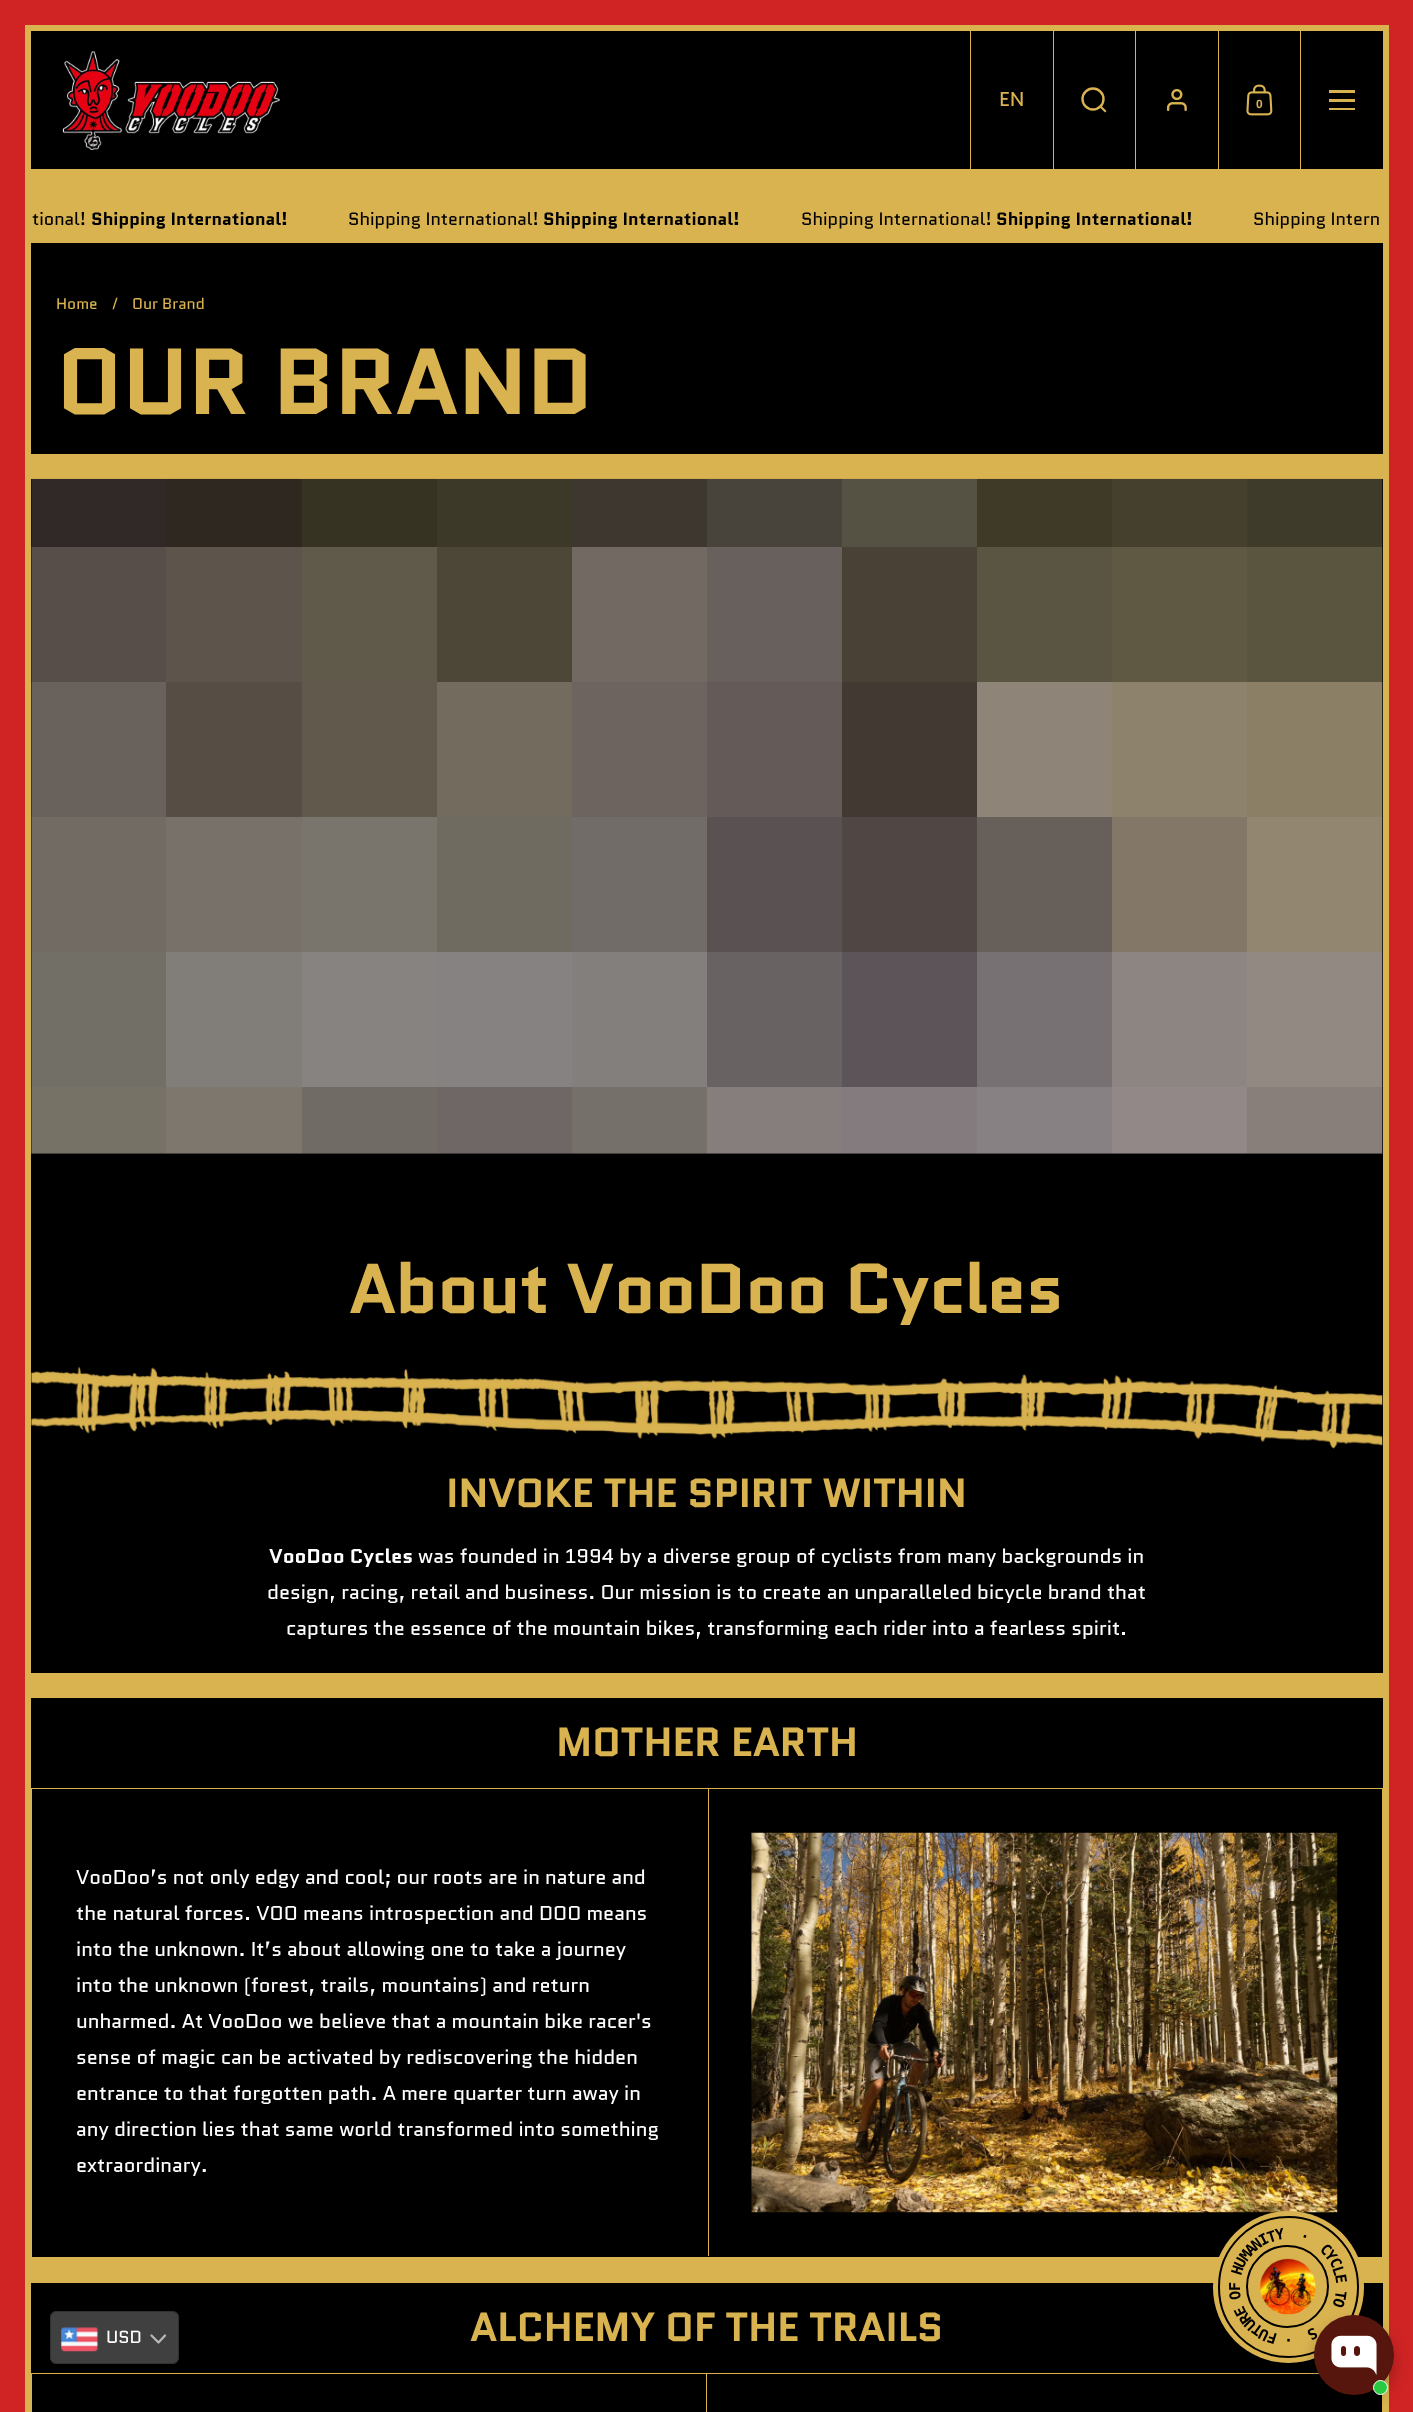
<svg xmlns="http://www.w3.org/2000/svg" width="1413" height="2412">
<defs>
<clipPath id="clip1"><rect x="56" y="1179" width="1302" height="146" rx="38"/></clipPath>
</defs>
<rect width="100%" height="100%" fill="#d02424"/>
<rect x="28" y="28" width="1358" height="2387" fill="#000" stroke="#dab351" stroke-width="6"/>
<image x="62" y="51" width="218" height="99" href="media/1.png"/>
<rect x="970" y="31" width="1" height="138" fill="#dab351"/>
<text x="999" y="106" style="font-family:Quantico;font-size:20px;fill:#dab351">EN</text>
<rect x="1053" y="31" width="1" height="138" fill="#dab351"/>
<circle cx="1093" cy="99" r="10.5" fill="none" stroke="#dab351" stroke-width="2.4"/>
<path d="M1099.5 107l1.5-1.5l5.5 5.5l-1.5 1.5z" fill="#dab351"/>
<rect x="1135" y="31" width="1" height="138" fill="#dab351"/>
<image x="1166" y="89" width="21" height="22" href="media/2.png"/>
<rect x="1218" y="31" width="1" height="138" fill="#dab351"/>
<image x="1246" y="84" width="27" height="32" href="media/3.png"/>
<text x="1256" y="108" style="font-family:Liberation Sans;font-size:12px;font-weight:bold;fill:#dab351">0</text>
<rect x="1300" y="31" width="1" height="138" fill="#dab351"/>
<rect x="1329" y="90" width="26" height="3" fill="#dab351"/>
<rect x="1329" y="99" width="26" height="3" fill="#dab351"/>
<rect x="1329" y="108" width="26" height="2" fill="#dab351"/>
<rect x="31" y="169" width="1352" height="74" fill="#dab351"/>
<text x="32" y="225" style="font-family:Quantico;font-size:17.75px;fill:#000">tional!</text>
<text x="91" y="225" style="font-family:Quantico;font-size:17.75px;font-weight:bold;fill:#000">Shipping International!</text>
<text x="348" y="225" style="font-family:Quantico;font-size:17.75px;fill:#000">Shipping International!</text>
<text x="543" y="225" style="font-family:Quantico;font-size:17.75px;font-weight:bold;fill:#000">Shipping International!</text>
<text x="801" y="225" style="font-family:Quantico;font-size:17.75px;fill:#000">Shipping International!</text>
<text x="996" y="225" style="font-family:Quantico;font-size:17.75px;font-weight:bold;fill:#000">Shipping International!</text>
<text x="1253" y="225" style="font-family:Quantico;font-size:17.75px;fill:#000">Shipping Intern</text>
<text x="56" y="309" style="font-family:Quantico;font-size:15.5px;fill:#dab351">Home</text>
<text x="112" y="309" style="font-family:Quantico;font-size:15.5px;fill:#dab351">/</text>
<text x="132" y="309" style="font-family:Quantico;font-size:15.5px;fill:#dab351">Our Brand</text>
<text x="56" y="414" style="font-family:Quantico;font-size:93.75px;font-weight:bold;letter-spacing:-1px;fill:#dab351">OUR BRAND</text>
<rect x="31" y="454" width="1352" height="25" fill="#dab351"/>
<image x="31" y="478" width="1352" height="676" href="media/4.png"/>
<g clip-path="url(#clip1)">
<text x="349" y="1313" style="font-family:Quantico;font-size:70.25px;font-weight:bold;letter-spacing:-0.75px;fill:#dab351">About VooDoo Cycles</text>
</g>
<image x="31" y="1366" width="1352" height="83" href="media/5.png"/>
<text x="446" y="1507" style="font-family:Quantico;font-size:40.6px;font-weight:bold;letter-spacing:-0.4px;fill:#dab351">INVOKE THE SPIRIT WITHIN</text>
<text x="269" y="1563" style="font-family:Quantico;font-size:20px;font-weight:bold;fill:#fff">VooDoo Cycles</text>
<text x="418" y="1563" style="font-family:Quantico;font-size:20px;fill:#fff">was founded in 1994 by a diverse group of cyclists from many backgrounds in</text>
<text x="267" y="1599" style="font-family:Quantico;font-size:20px;fill:#fff">design, racing, retail and business. Our mission is to create an unparalleled bicycle brand that</text>
<text x="286" y="1635" style="font-family:Quantico;font-size:20px;fill:#fff">captures the essence of the mountain bikes, transforming each rider into a fearless spirit.</text>
<rect x="31" y="1673" width="1352" height="25" fill="#dab351"/>
<text x="556" y="1756" style="font-family:Quantico;font-size:40.6px;font-weight:bold;letter-spacing:-0.4px;fill:#dab351">MOTHER EARTH</text>
<rect x="31.5" y="1788.5" width="1351" height="469" fill="none" stroke="#dab351"/>
<text x="76" y="1884" style="font-family:Quantico;font-size:20px;fill:#fff">VooDoo’s not only edgy and cool; our roots are in nature and</text>
<text x="76" y="1920" style="font-family:Quantico;font-size:20px;fill:#fff">the natural forces. VOO means introspection and DOO means</text>
<text x="76" y="1956" style="font-family:Quantico;font-size:20px;fill:#fff">into the unknown. It’s about allowing one to take a journey</text>
<text x="76" y="1992" style="font-family:Quantico;font-size:20px;fill:#fff">into the unknown (forest, trails, mountains) and return</text>
<text x="76" y="2028" style="font-family:Quantico;font-size:20px;fill:#fff">unharmed. At VooDoo we believe that a mountain bike racer's</text>
<text x="76" y="2064" style="font-family:Quantico;font-size:20px;fill:#fff">sense of magic can be activated by rediscovering the hidden</text>
<text x="76" y="2100" style="font-family:Quantico;font-size:20px;fill:#fff">entrance to that forgotten path. A mere quarter turn away in</text>
<text x="76" y="2136" style="font-family:Quantico;font-size:20px;fill:#fff">any direction lies that same world transformed into something</text>
<text x="76" y="2172" style="font-family:Quantico;font-size:20px;fill:#fff">extraordinary.</text>
<rect x="708" y="1789" width="1" height="467" fill="#dab351"/>
<image x="751" y="1832" width="587" height="381" href="media/6.png"/>
<rect x="31" y="2258" width="1352" height="25" fill="#dab351"/>
<text x="470" y="2341" style="font-family:Quantico;font-size:40.6px;font-weight:bold;letter-spacing:-0.4px;fill:#dab351">ALCHEMY OF THE TRAILS</text>
<rect x="31.5" y="2373.5" width="1351" height="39" fill="none" stroke="#dab351"/>
<rect x="706" y="2374" width="1" height="38" fill="#dab351"/>
<rect x="1213" y="2211" width="151" height="152" rx="75.5" fill="#dab351"/>
<rect x="1219" y="2217" width="139" height="140" rx="69.5" fill="none" stroke="#000" stroke-width="2"/>
<text x="1276" y="2240" transform="rotate(-9 1276 2240)" style="font-family:DejaVu Sans Mono;font-size:15px;font-weight:bold;fill:#000">Y</text>
<text x="1269" y="2243" transform="rotate(-18 1269 2243)" style="font-family:DejaVu Sans Mono;font-size:15px;font-weight:bold;fill:#000">T</text>
<text x="1262" y="2246" transform="rotate(-27 1262 2246)" style="font-family:DejaVu Sans Mono;font-size:15px;font-weight:bold;fill:#000">I</text>
<text x="1299" y="2240" transform="rotate(18 1299 2240)" style="font-family:DejaVu Sans Mono;font-size:15px;font-weight:bold;fill:#000">·</text>
<text x="1256" y="2251" transform="rotate(-36 1256 2251)" style="font-family:DejaVu Sans Mono;font-size:15px;font-weight:bold;fill:#000">N</text>
<text x="1251" y="2256" transform="rotate(-45 1251 2256)" style="font-family:DejaVu Sans Mono;font-size:15px;font-weight:bold;fill:#000">A</text>
<text x="1324" y="2255" transform="rotate(54 1324 2255)" style="font-family:DejaVu Sans Mono;font-size:15px;font-weight:bold;fill:#000">Y</text>
<text x="1319" y="2250" transform="rotate(45 1319 2250)" style="font-family:DejaVu Sans Mono;font-size:15px;font-weight:bold;fill:#000">C</text>
<text x="1247" y="2262" transform="rotate(-54 1247 2262)" style="font-family:DejaVu Sans Mono;font-size:15px;font-weight:bold;fill:#000">M</text>
<text x="1243" y="2269" transform="rotate(-63 1243 2269)" style="font-family:DejaVu Sans Mono;font-size:15px;font-weight:bold;fill:#000">U</text>
<text x="1329" y="2261" transform="rotate(63 1329 2261)" style="font-family:DejaVu Sans Mono;font-size:15px;font-weight:bold;fill:#000">C</text>
<text x="1241" y="2276" transform="rotate(-72 1241 2276)" style="font-family:DejaVu Sans Mono;font-size:15px;font-weight:bold;fill:#000">H</text>
<text x="1332" y="2268" transform="rotate(72 1332 2268)" style="font-family:DejaVu Sans Mono;font-size:15px;font-weight:bold;fill:#000">L</text>
<text x="1335" y="2275" transform="rotate(81 1335 2275)" style="font-family:DejaVu Sans Mono;font-size:15px;font-weight:bold;fill:#000">E</text>
<text x="1240" y="2291" transform="rotate(-90 1240 2291)" style="font-family:DejaVu Sans Mono;font-size:15px;font-weight:bold;fill:#000">F</text>
<text x="1241" y="2299" transform="rotate(-99 1241 2299)" style="font-family:DejaVu Sans Mono;font-size:15px;font-weight:bold;fill:#000">O</text>
<text x="1336" y="2290" transform="rotate(99 1336 2290)" style="font-family:DejaVu Sans Mono;font-size:15px;font-weight:bold;fill:#000">T</text>
<text x="1335" y="2297" transform="rotate(108 1335 2297)" style="font-family:DejaVu Sans Mono;font-size:15px;font-weight:bold;fill:#000">O</text>
<text x="1247" y="2313" transform="rotate(-117 1247 2313)" style="font-family:DejaVu Sans Mono;font-size:15px;font-weight:bold;fill:#000">E</text>
<text x="1252" y="2319" transform="rotate(-126 1252 2319)" style="font-family:DejaVu Sans Mono;font-size:15px;font-weight:bold;fill:#000">R</text>
<text x="1257" y="2324" transform="rotate(-135 1257 2324)" style="font-family:DejaVu Sans Mono;font-size:15px;font-weight:bold;fill:#000">U</text>
<text x="1264" y="2328" transform="rotate(-144 1264 2328)" style="font-family:DejaVu Sans Mono;font-size:15px;font-weight:bold;fill:#000">T</text>
<text x="1270" y="2332" transform="rotate(-153 1270 2332)" style="font-family:DejaVu Sans Mono;font-size:15px;font-weight:bold;fill:#000">U</text>
<text x="1278" y="2334" transform="rotate(-162 1278 2334)" style="font-family:DejaVu Sans Mono;font-size:15px;font-weight:bold;fill:#000">F</text>
<text x="1293" y="2335" transform="rotate(180 1293 2335)" style="font-family:DejaVu Sans Mono;font-size:15px;font-weight:bold;fill:#000">·</text>
<text x="1314" y="2327" transform="rotate(153 1314 2327)" style="font-family:DejaVu Sans Mono;font-size:15px;font-weight:bold;fill:#000">S</text>
<circle cx="1287.5" cy="2286.5" r="40.5" fill="none" stroke="#000" stroke-width="2"/>
<image x="1260" y="2258" width="56" height="57" href="media/7.png"/>
<rect x="50.5" y="2311.5" width="128" height="52" rx="5.5" fill="#404040" stroke="#313131"/>
<image x="61" y="2327" width="38" height="25" href="media/8.png"/>
<text x="106" y="2343" style="font-family:Quantico;font-size:17.5px;fill:#fff">USD</text>
<path d="M151.5 2335.5l7 7l6.5-7" fill="none" stroke="#b7b7b7" stroke-width="2.3" stroke-linecap="round" stroke-linejoin="round"/>
<rect x="1314" y="2323" width="80" height="80" rx="40" fill="#00000040" filter="blur(7.5px)"/>
<circle cx="1354" cy="2355" r="40" fill="#56160d"/>
<image x="1331" y="2335" width="46" height="40" href="media/9.png"/>
<circle cx="1380.5" cy="2387.5" r="7" fill="#27ca40" stroke="#fff"/>
</svg>
